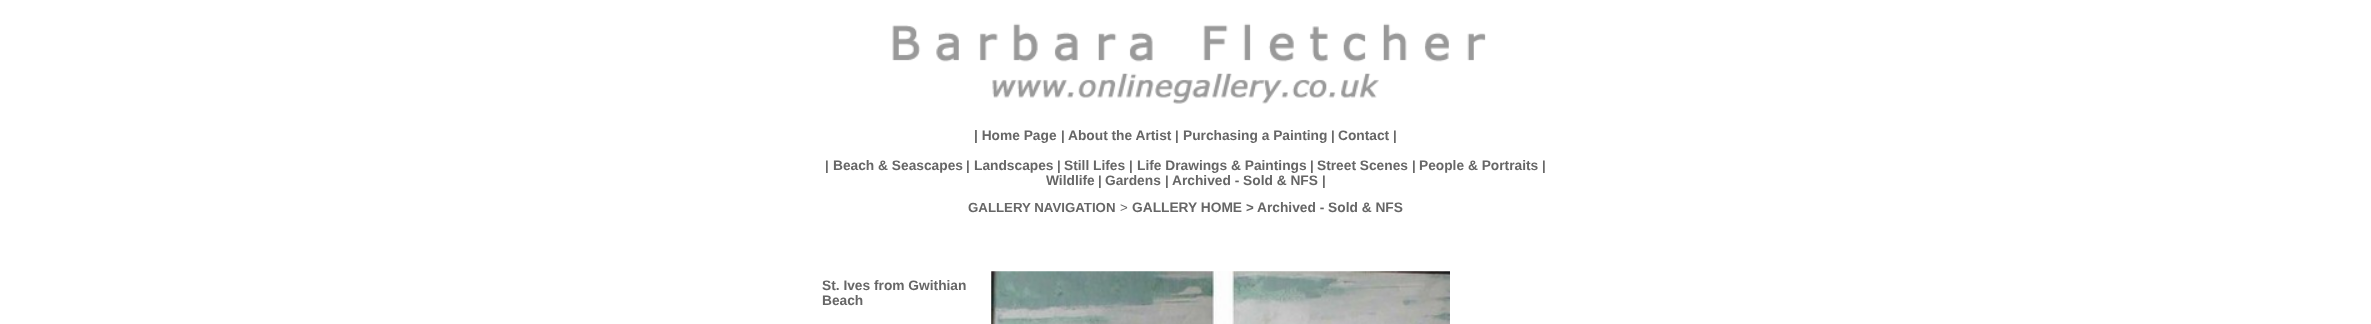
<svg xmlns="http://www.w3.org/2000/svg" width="2371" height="324">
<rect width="100%" height="100%" fill="#fff"/>
<image x="892" y="23" width="594" height="81" href="media/1.png"/>
<text x="974" y="140" style="font-family:Liberation Sans;font-size:13.75px;font-weight:bold;fill:#666">| Home Page</text>
<text x="1061" y="140" style="font-family:Liberation Sans;font-size:13.25px;font-weight:bold;fill:#666">|</text>
<text x="1068" y="140" style="font-family:Liberation Sans;font-size:13.75px;font-weight:bold;fill:#666">About the Artist</text>
<text x="1175" y="140" style="font-family:Liberation Sans;font-size:13.25px;font-weight:bold;fill:#666">|</text>
<text x="1183" y="140" style="font-family:Liberation Sans;font-size:13.75px;font-weight:bold;fill:#666">Purchasing a Painting</text>
<text x="1331" y="140" style="font-family:Liberation Sans;font-size:13.25px;font-weight:bold;fill:#666">|</text>
<text x="1338" y="140" style="font-family:Liberation Sans;font-size:13.75px;font-weight:bold;fill:#666">Contact</text>
<text x="1393" y="140" style="font-family:Liberation Sans;font-size:13.25px;font-weight:bold;fill:#666">|</text>
<text x="825" y="170" style="font-family:Liberation Sans;font-size:13.25px;font-weight:bold;fill:#666">|</text>
<text x="833" y="170" style="font-family:Liberation Sans;font-size:13.75px;font-weight:bold;fill:#666">Beach &amp; Seascapes</text>
<text x="966" y="170" style="font-family:Liberation Sans;font-size:13.25px;font-weight:bold;fill:#666">|</text>
<text x="974" y="170" style="font-family:Liberation Sans;font-size:13.75px;font-weight:bold;fill:#666">Landscapes</text>
<text x="1057" y="170" style="font-family:Liberation Sans;font-size:13.25px;font-weight:bold;fill:#666">|</text>
<text x="1064" y="170" style="font-family:Liberation Sans;font-size:13.75px;font-weight:bold;fill:#666">Still Lifes</text>
<text x="1129" y="170" style="font-family:Liberation Sans;font-size:13.25px;font-weight:bold;fill:#666">|</text>
<text x="1137" y="170" style="font-family:Liberation Sans;font-size:13.75px;font-weight:bold;fill:#666">Life Drawings &amp; Paintings</text>
<text x="1310" y="170" style="font-family:Liberation Sans;font-size:13.25px;font-weight:bold;fill:#666">|</text>
<text x="1317" y="170" style="font-family:Liberation Sans;font-size:13.75px;font-weight:bold;fill:#666">Street Scenes</text>
<text x="1412" y="170" style="font-family:Liberation Sans;font-size:13.25px;font-weight:bold;fill:#666">|</text>
<text x="1419" y="170" style="font-family:Liberation Sans;font-size:13.75px;font-weight:bold;fill:#666">People &amp; Portraits</text>
<text x="1542" y="170" style="font-family:Liberation Sans;font-size:13.25px;font-weight:bold;fill:#666">|</text>
<text x="1046" y="185" style="font-family:Liberation Sans;font-size:13.75px;font-weight:bold;fill:#666">Wildlife</text>
<text x="1098" y="185" style="font-family:Liberation Sans;font-size:13.25px;font-weight:bold;fill:#666">|</text>
<text x="1105" y="185" style="font-family:Liberation Sans;font-size:13.75px;font-weight:bold;fill:#666">Gardens</text>
<text x="1165" y="185" style="font-family:Liberation Sans;font-size:13.25px;font-weight:bold;fill:#666">|</text>
<text x="1172" y="185" style="font-family:Liberation Sans;font-size:13.75px;font-weight:bold;fill:#666">Archived - Sold &amp; NFS</text>
<text x="1322" y="185" style="font-family:Liberation Sans;font-size:13.25px;font-weight:bold;fill:#666">|</text>
<text x="968" y="212" style="font-family:Liberation Sans;font-size:13.25px;font-weight:bold;fill:#666">GALLERY NAVIGATION</text>
<text x="1120" y="212" style="font-family:Liberation Sans;font-size:13.25px;fill:#666">&gt;</text>
<text x="1132" y="212" style="font-family:Liberation Sans;font-size:13.75px;font-weight:bold;fill:#666">GALLERY HOME</text>
<text x="1246" y="212" style="font-family:Liberation Sans;font-size:13.25px;font-weight:bold;fill:#666">&gt;</text>
<text x="1257" y="212" style="font-family:Liberation Sans;font-size:13.75px;font-weight:bold;fill:#666">Archived - Sold &amp; NFS</text>
<text x="822" y="290" style="font-family:Liberation Sans;font-size:13.75px;font-weight:bold;fill:#666">St. Ives from Gwithian</text>
<text x="822" y="305" style="font-family:Liberation Sans;font-size:13.75px;font-weight:bold;fill:#666">Beach</text>
<image x="991" y="271" width="459" height="53" href="media/2.png"/>
</svg>
